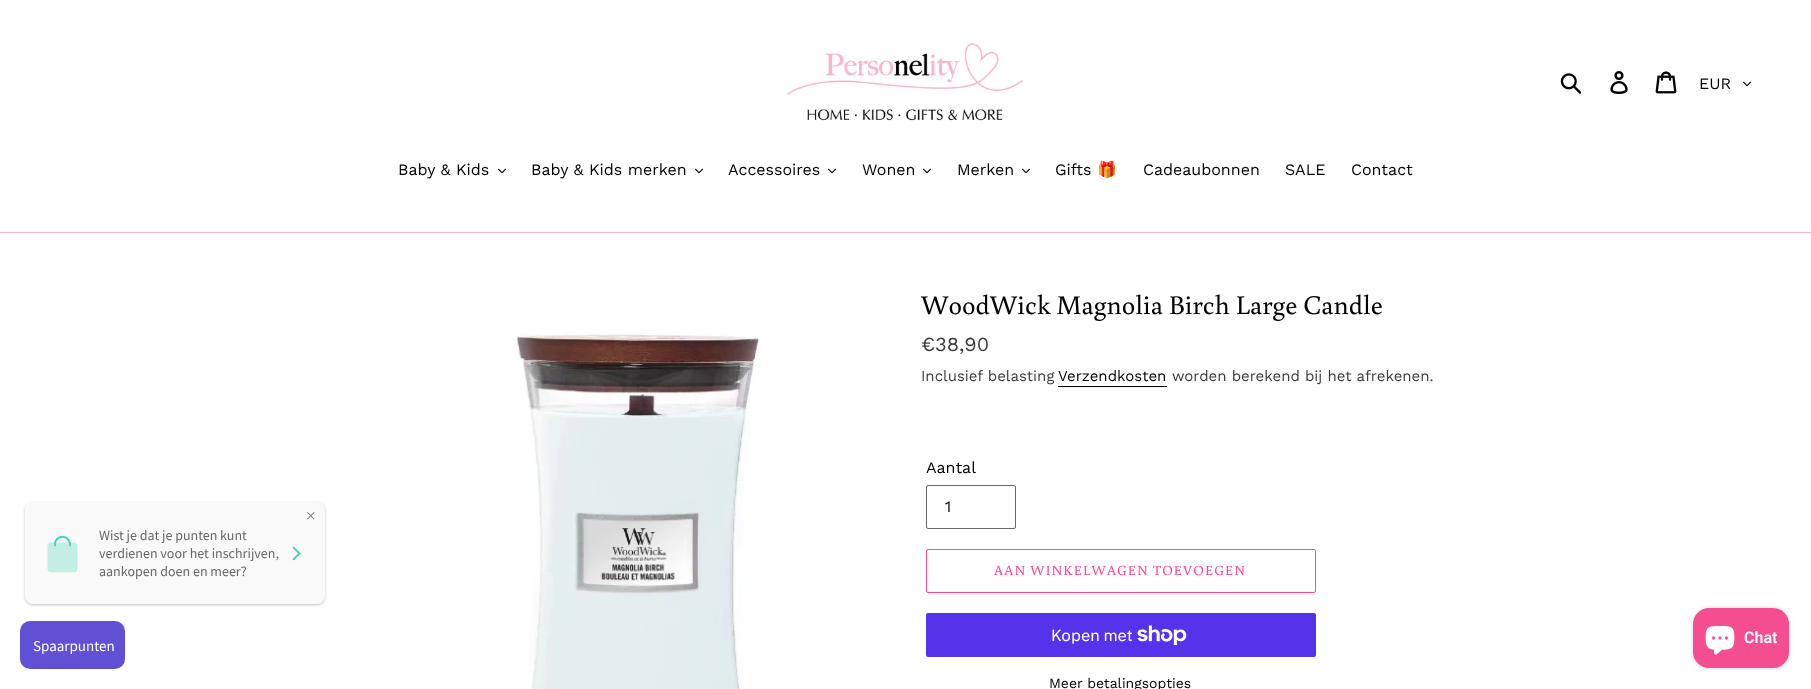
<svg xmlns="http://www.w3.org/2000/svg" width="1811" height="689">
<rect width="100%" height="100%" fill="#fff"/>
<image x="786" y="42" width="237" height="79" href="media/1.png"/>
<image x="1560" y="73" width="22" height="21" href="media/2.png"/>
<image x="1610" y="71" width="18" height="23" href="media/3.png"/>
<image x="1655" y="71" width="22" height="23" href="media/4.png"/>
<text x="1699" y="89" style="font-family:Work Sans;font-size:16px;fill:#000">EUR</text>
<image x="1743" y="81" width="8" height="6" href="media/5.png"/>
<rect y="232" width="1811" height="1" fill="#fcb3cf"/>
<text x="398" y="175" style="font-family:Work Sans;font-size:16px;fill:#000">Baby &amp; Kids</text>
<image x="498" y="168" width="8" height="6" href="media/5.png"/>
<text x="531" y="175" style="font-family:Work Sans;font-size:16px;fill:#000">Baby &amp; Kids merken</text>
<image x="695" y="168" width="8" height="6" href="media/5.png"/>
<text x="728" y="175" style="font-family:Work Sans;font-size:16px;fill:#000">Accessoires</text>
<image x="828" y="168" width="8" height="6" href="media/5.png"/>
<text x="862" y="175" style="font-family:Work Sans;font-size:16px;fill:#000">Wonen</text>
<image x="923" y="168" width="8" height="6" href="media/5.png"/>
<text x="957" y="175" style="font-family:Work Sans;font-size:16px;fill:#000">Merken</text>
<image x="1022" y="168" width="8" height="6" href="media/5.png"/>
<text x="1055" y="175" style="font-family:Work Sans;font-size:16px;fill:#000">Gifts</text>
<text x="1097" y="175" style="font-family:Noto Color Emoji;font-size:16px;fill:#000">🎁</text>
<text x="1143" y="175" style="font-family:Work Sans;font-size:16px;fill:#000">Cadeaubonnen</text>
<text x="1285" y="175" style="font-family:Work Sans;font-size:16px;fill:#000">SALE</text>
<text x="1351" y="175" style="font-family:Work Sans;font-size:16px;fill:#000">Contact</text>
<image x="23" y="501" width="304" height="106" href="media/6.png"/>
<image x="516" y="333" width="247" height="356" href="media/7.png"/>
<text x="921" y="314" style="font-family:Buenard;font-size:27px;fill:#000">WoodWick Magnolia Birch Large Candle</text>
<text x="921" y="351" style="font-family:Work Sans;font-size:20px;fill:#3c3c3c">€38,90</text>
<text x="921" y="381" style="font-family:Work Sans;font-size:15px;fill:#3c3c3c">Inclusief belasting</text>
<text x="1058" y="381" style="font-family:Work Sans;font-size:15px;fill:#000">Verzendkosten</text>
<rect x="1058" y="386" width="109" height="1" fill="#000"/>
<text x="1172" y="381" style="font-family:Work Sans;font-size:15px;fill:#3c3c3c">worden berekend bij het afrekenen.</text>
<text x="926" y="473" style="font-family:Work Sans;font-size:16px;fill:#000">Aantal</text>
<rect x="926.5" y="485.5" width="89" height="43" rx="1.5" fill="none" stroke="#686868"/>
<text x="945" y="512" style="font-family:Work Sans;font-size:16px;fill:#000">1</text>
<rect x="926.5" y="549.5" width="389" height="43" rx="1.5" fill="none" stroke="#ff478f"/>
<text x="994" y="575" style="font-family:Buenard;font-size:14px;letter-spacing:1.1px;fill:#ff478f">AAN WINKELWAGEN TOEVOEGEN</text>
<rect x="926" y="613" width="390" height="44" rx="2" fill="#5433eb"/>
<text x="1051" y="641" style="font-family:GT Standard;font-size:16px;fill:#fff">Kopen met</text>
<image x="1137" y="625" width="50" height="20" href="media/8.png"/>
<text x="1049" y="688" style="font-family:Work Sans;font-size:14px;fill:#000">Meer betalingsopties</text>
<image x="20" y="621" width="105" height="48" href="media/9.png"/>
<rect x="1693" y="608" width="96" height="60" rx="16" fill="#00000026" filter="blur(2.5px)"/>
<rect x="1693" y="608" width="96" height="60" rx="16" fill="#f44d90"/>
<image x="1705" y="626" width="30" height="29" href="media/10.png"/>
<text x="1744" y="643" style="font-family:Roboto;font-size:16px;font-weight:600;fill:#fff">Chat</text>
</svg>
